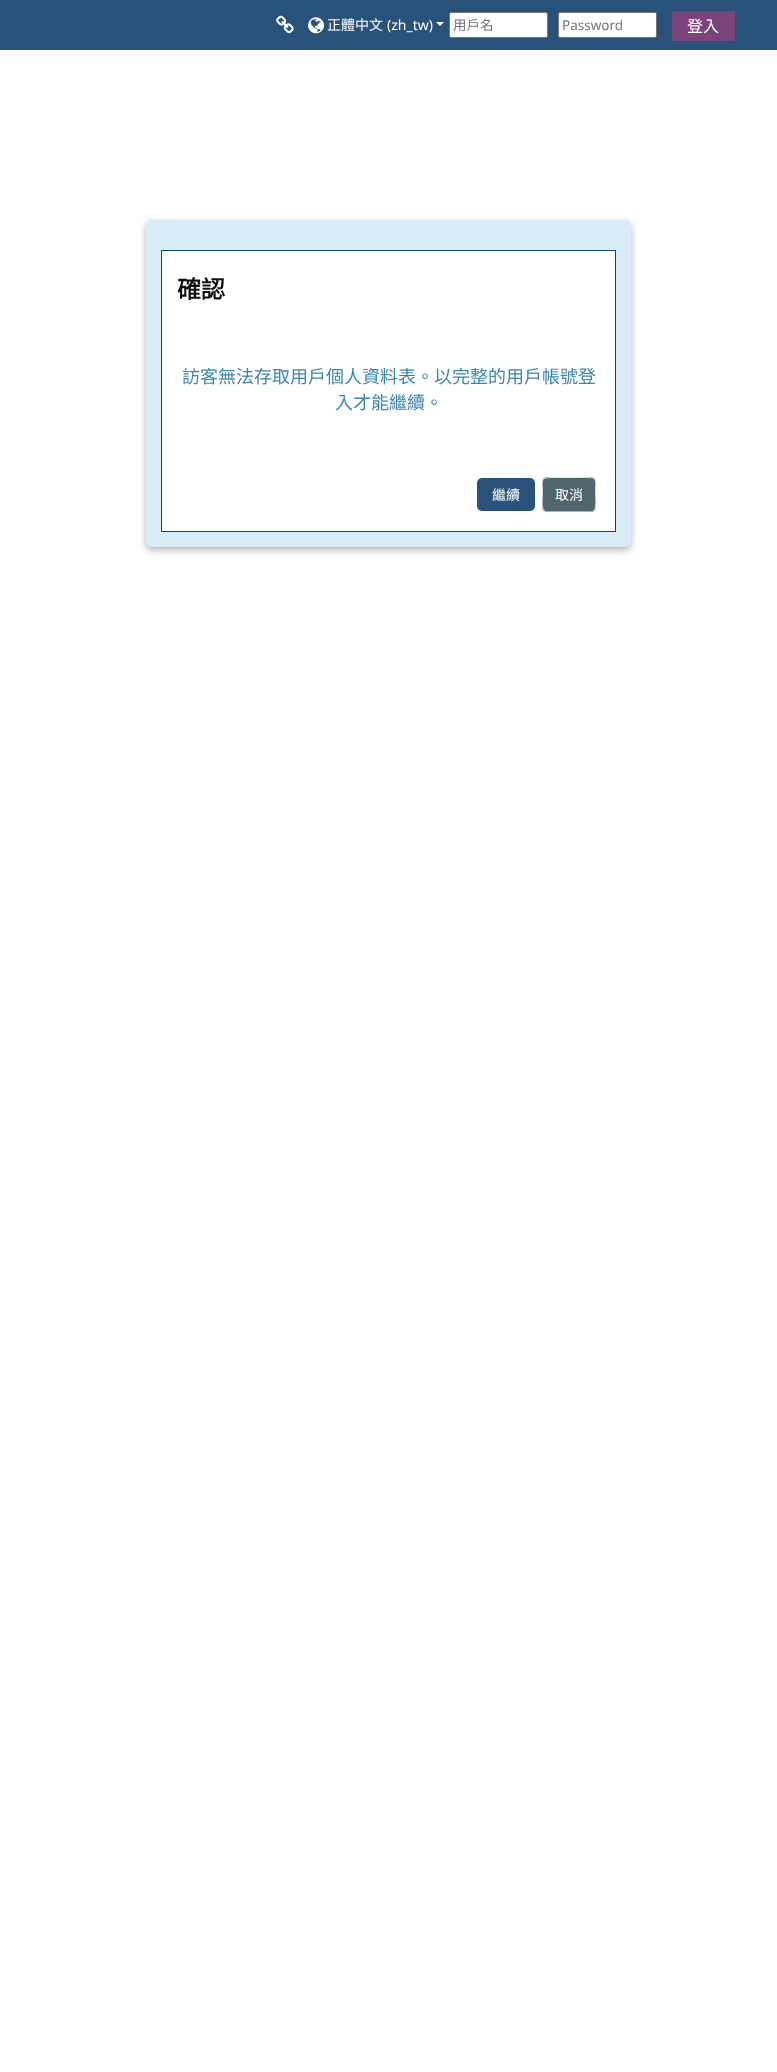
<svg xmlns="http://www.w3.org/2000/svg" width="777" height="2072">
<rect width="100%" height="100%" fill="#fff"/>
<rect width="777" height="50" fill="#28527a"/>
<image x="276" y="15" width="18" height="19" href="media/1.png"/>
<image x="308" y="17" width="16" height="17" href="media/2.png"/>
<text x="327" y="30" style="font-family:Noto Sans CJK TC;font-size:14px;fill:#fff">正體中文</text>
<text x="387" y="30" style="font-family:Noto Sans;font-size:14px;fill:#fff">(zh_tw)</text>
<path d="M436 22h8l-4 4z" fill="#fff"/>
<rect x="449.5" y="12.5" width="98" height="25" rx="1.5" fill="#fff" stroke="#767676"/>
<text x="453" y="30" style="font-family:Noto Sans CJK TC;font-size:13.5px;fill:#757575">用戶名</text>
<rect x="558.5" y="12.5" width="98" height="25" rx="1.5" fill="#fff" stroke="#767676"/>
<text x="562" y="30" style="font-family:Noto Sans;font-size:13.5px;fill:#757575">Password</text>
<rect x="672" y="11" width="63" height="30" fill="#7a437a"/>
<text x="687" y="32" style="font-family:Noto Sans CJK TC;font-size:16px;fill:#fff">登入</text>
<rect x="146" y="223" width="485" height="327" rx="6" fill="#0000004d" filter="blur(3.5px)"/>
<rect x="146" y="220" width="485" height="327" rx="6" fill="#d9edf7"/>
<rect x="161.5" y="250.5" width="454" height="281" fill="#fff" stroke="#134081"/>
<text x="177" y="298" style="font-family:Noto Sans CJK TC;font-size:24px;font-weight:bold;fill:#111">確認</text>
<text x="182" y="383" style="font-family:Noto Sans CJK TC;font-size:18px;fill:#3a87ad">訪客無法存取用戶個人資料表。以完整的用戶帳號登</text>
<text x="335" y="409" style="font-family:Noto Sans CJK TC;font-size:18px;fill:#3a87ad">入才能繼續。</text>
<rect x="477" y="478" width="58" height="33" rx="5" fill="#28527a"/>
<text x="492" y="500" style="font-family:Noto Sans CJK TC;font-size:14px;fill:#fff">繼續</text>
<rect x="542" y="477" width="54" height="35" rx="5" fill="#51666c"/>
<path d="M594 510c-.5 1-2 1.5-3 1.5h-44c-1 0-2.5-.5-3-1.5" fill="none" stroke="#b3b3b3"/>
<path d="M544 510c-3-2.5-1.5-12-1.5-15.5c0-16-3-17 12-17h29c15 0 12 1 12 17c0 3.5 1.5 13-1.5 15.5" fill="none" stroke="#e6e6e6"/>
<text x="555" y="500" style="font-family:Noto Sans CJK TC;font-size:14px;fill:#fff">取消</text>
</svg>
